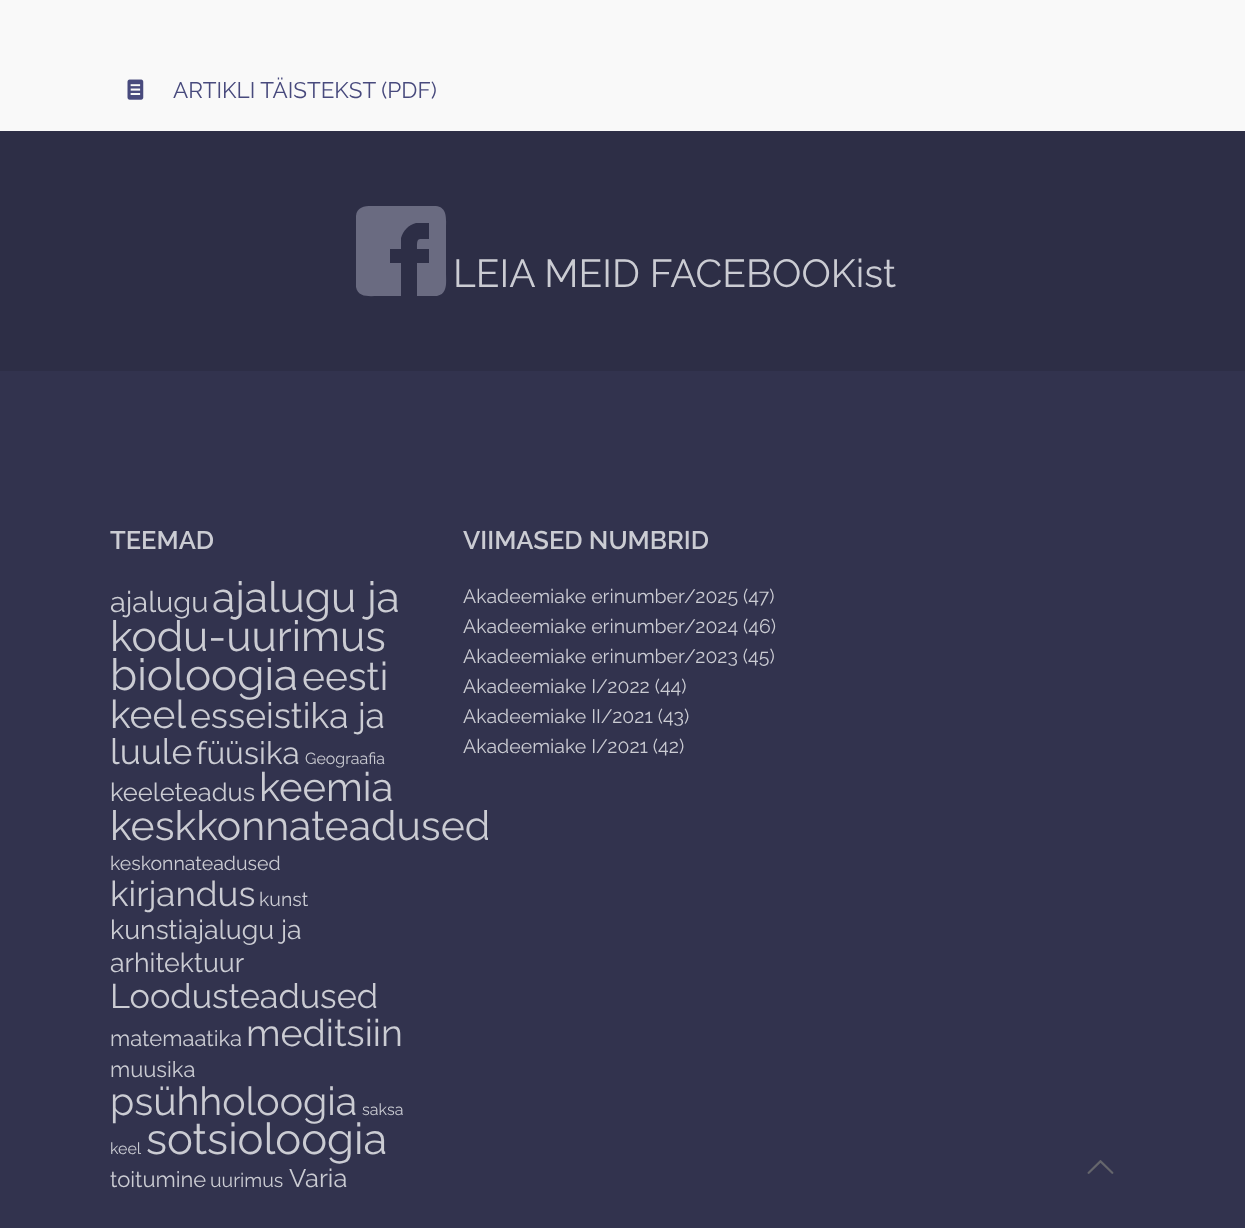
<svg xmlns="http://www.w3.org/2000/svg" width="1245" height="1228">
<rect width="100%" height="100%" fill="#f9f9f9"/>
<image x="127" y="79" width="17" height="21" href="media/1.png"/>
<text x="173" y="98" style="font-family:Raleway;font-size:22.5px;fill:#484a7d">ARTIKLI TÄISTEKST (PDF)</text>
<rect y="371" width="1245" height="857" fill="#32334e"/>
<rect y="131" width="1245" height="240" fill="#2d2e46"/>
<path d="M434 206c14 0 12 13 12 22v45c0 9 2 21-9 23h-20v-33h12v-14h-12c0-12 0-10 12-10v-16h-13c-8 2-13 8-15 15v11h-11v14h11v33h-23c-8 0-20 2-22-9v-71c1-12 14-10 22-10z" fill="#6a6b81"/>
<text x="453" y="287" style="font-family:Raleway;font-size:39px;fill:#cbccd3">LEIA MEID FACEBOOKist</text>
<text x="110" y="549" style="font-family:Raleway;font-size:25.5px;font-weight:600;fill:#cbccd3">TEEMAD</text>
<text x="110" y="612" style="font-family:Raleway;font-size:29px;fill:#cbccd3">ajalugu</text>
<text x="212" y="612" style="font-family:Raleway;font-size:42.5px;fill:#cbccd3">ajalugu ja</text>
<text x="110" y="651" style="font-family:Raleway;font-size:42.5px;fill:#cbccd3">kodu-uurimus</text>
<text x="110" y="690" style="font-family:Raleway;font-size:44px;fill:#cbccd3">bioloogia</text>
<text x="302" y="690" style="font-family:Raleway;font-size:39px;fill:#cbccd3">eesti</text>
<text x="110" y="728" style="font-family:Raleway;font-size:39px;fill:#cbccd3">keel</text>
<text x="190" y="728" style="font-family:Raleway;font-size:35.5px;fill:#cbccd3">esseistika ja</text>
<text x="110" y="764" style="font-family:Raleway;font-size:35.5px;fill:#cbccd3">luule</text>
<text x="196" y="764" style="font-family:Raleway;font-size:31.5px;fill:#cbccd3">füüsika</text>
<text x="305" y="764" style="font-family:Raleway;font-size:16px;fill:#cbccd3">Geograafia</text>
<text x="110" y="801" style="font-family:Raleway;font-size:25.5px;fill:#cbccd3">keeleteadus</text>
<text x="259" y="801" style="font-family:Raleway;font-size:40px;fill:#cbccd3">keemia</text>
<text x="110" y="840" style="font-family:Raleway;font-size:41px;fill:#cbccd3">keskkonnateadused</text>
<text x="110" y="870" style="font-family:Raleway;font-size:19.5px;fill:#cbccd3">keskonnateadused</text>
<text x="110" y="906" style="font-family:Raleway;font-size:35px;fill:#cbccd3">kirjandus</text>
<text x="259" y="906" style="font-family:Raleway;font-size:19.5px;fill:#cbccd3">kunst</text>
<text x="110" y="939" style="font-family:Raleway;font-size:26.75px;fill:#cbccd3">kunstiajalugu ja</text>
<text x="110" y="972" style="font-family:Raleway;font-size:26.75px;fill:#cbccd3">arhitektuur</text>
<text x="110" y="1008" style="font-family:Raleway;font-size:34.25px;fill:#cbccd3">Loodusteadused</text>
<text x="110" y="1046" style="font-family:Raleway;font-size:22px;fill:#cbccd3">matemaatika</text>
<text x="246" y="1046" style="font-family:Raleway;font-size:37.5px;fill:#cbccd3">meditsiin</text>
<text x="110" y="1077" style="font-family:Raleway;font-size:22px;fill:#cbccd3">muusika</text>
<text x="110" y="1115" style="font-family:Raleway;font-size:39.25px;fill:#cbccd3">psühholoogia</text>
<text x="362" y="1115" style="font-family:Raleway;font-size:16px;fill:#cbccd3">saksa</text>
<text x="110" y="1154" style="font-family:Raleway;font-size:16px;fill:#cbccd3">keel</text>
<text x="146" y="1154" style="font-family:Raleway;font-size:43.5px;fill:#cbccd3">sotsioloogia</text>
<text x="110" y="1187" style="font-family:Raleway;font-size:22px;fill:#cbccd3">toitumine</text>
<text x="210" y="1187" style="font-family:Raleway;font-size:19.5px;fill:#cbccd3">uurimus</text>
<text x="289" y="1187" style="font-family:Raleway;font-size:25.5px;fill:#cbccd3">Varia</text>
<text x="463" y="549" style="font-family:Raleway;font-size:25.5px;font-weight:600;fill:#cbccd3">VIIMASED NUMBRID</text>
<text x="463" y="603" style="font-family:Raleway;font-size:19.5px;fill:#cbccd3">Akadeemiake erinumber/2025 (47)</text>
<text x="463" y="633" style="font-family:Raleway;font-size:19.5px;fill:#cbccd3">Akadeemiake erinumber/2024 (46)</text>
<text x="463" y="663" style="font-family:Raleway;font-size:19.5px;fill:#cbccd3">Akadeemiake erinumber/2023 (45)</text>
<text x="463" y="693" style="font-family:Raleway;font-size:19.5px;fill:#cbccd3">Akadeemiake I/2022 (44)</text>
<text x="463" y="723" style="font-family:Raleway;font-size:19.5px;fill:#cbccd3">Akadeemiake II/2021 (43)</text>
<text x="463" y="753" style="font-family:Raleway;font-size:19.5px;fill:#cbccd3">Akadeemiake I/2021 (42)</text>
<image x="1087" y="1160" width="27" height="14" href="media/2.png"/>
</svg>
